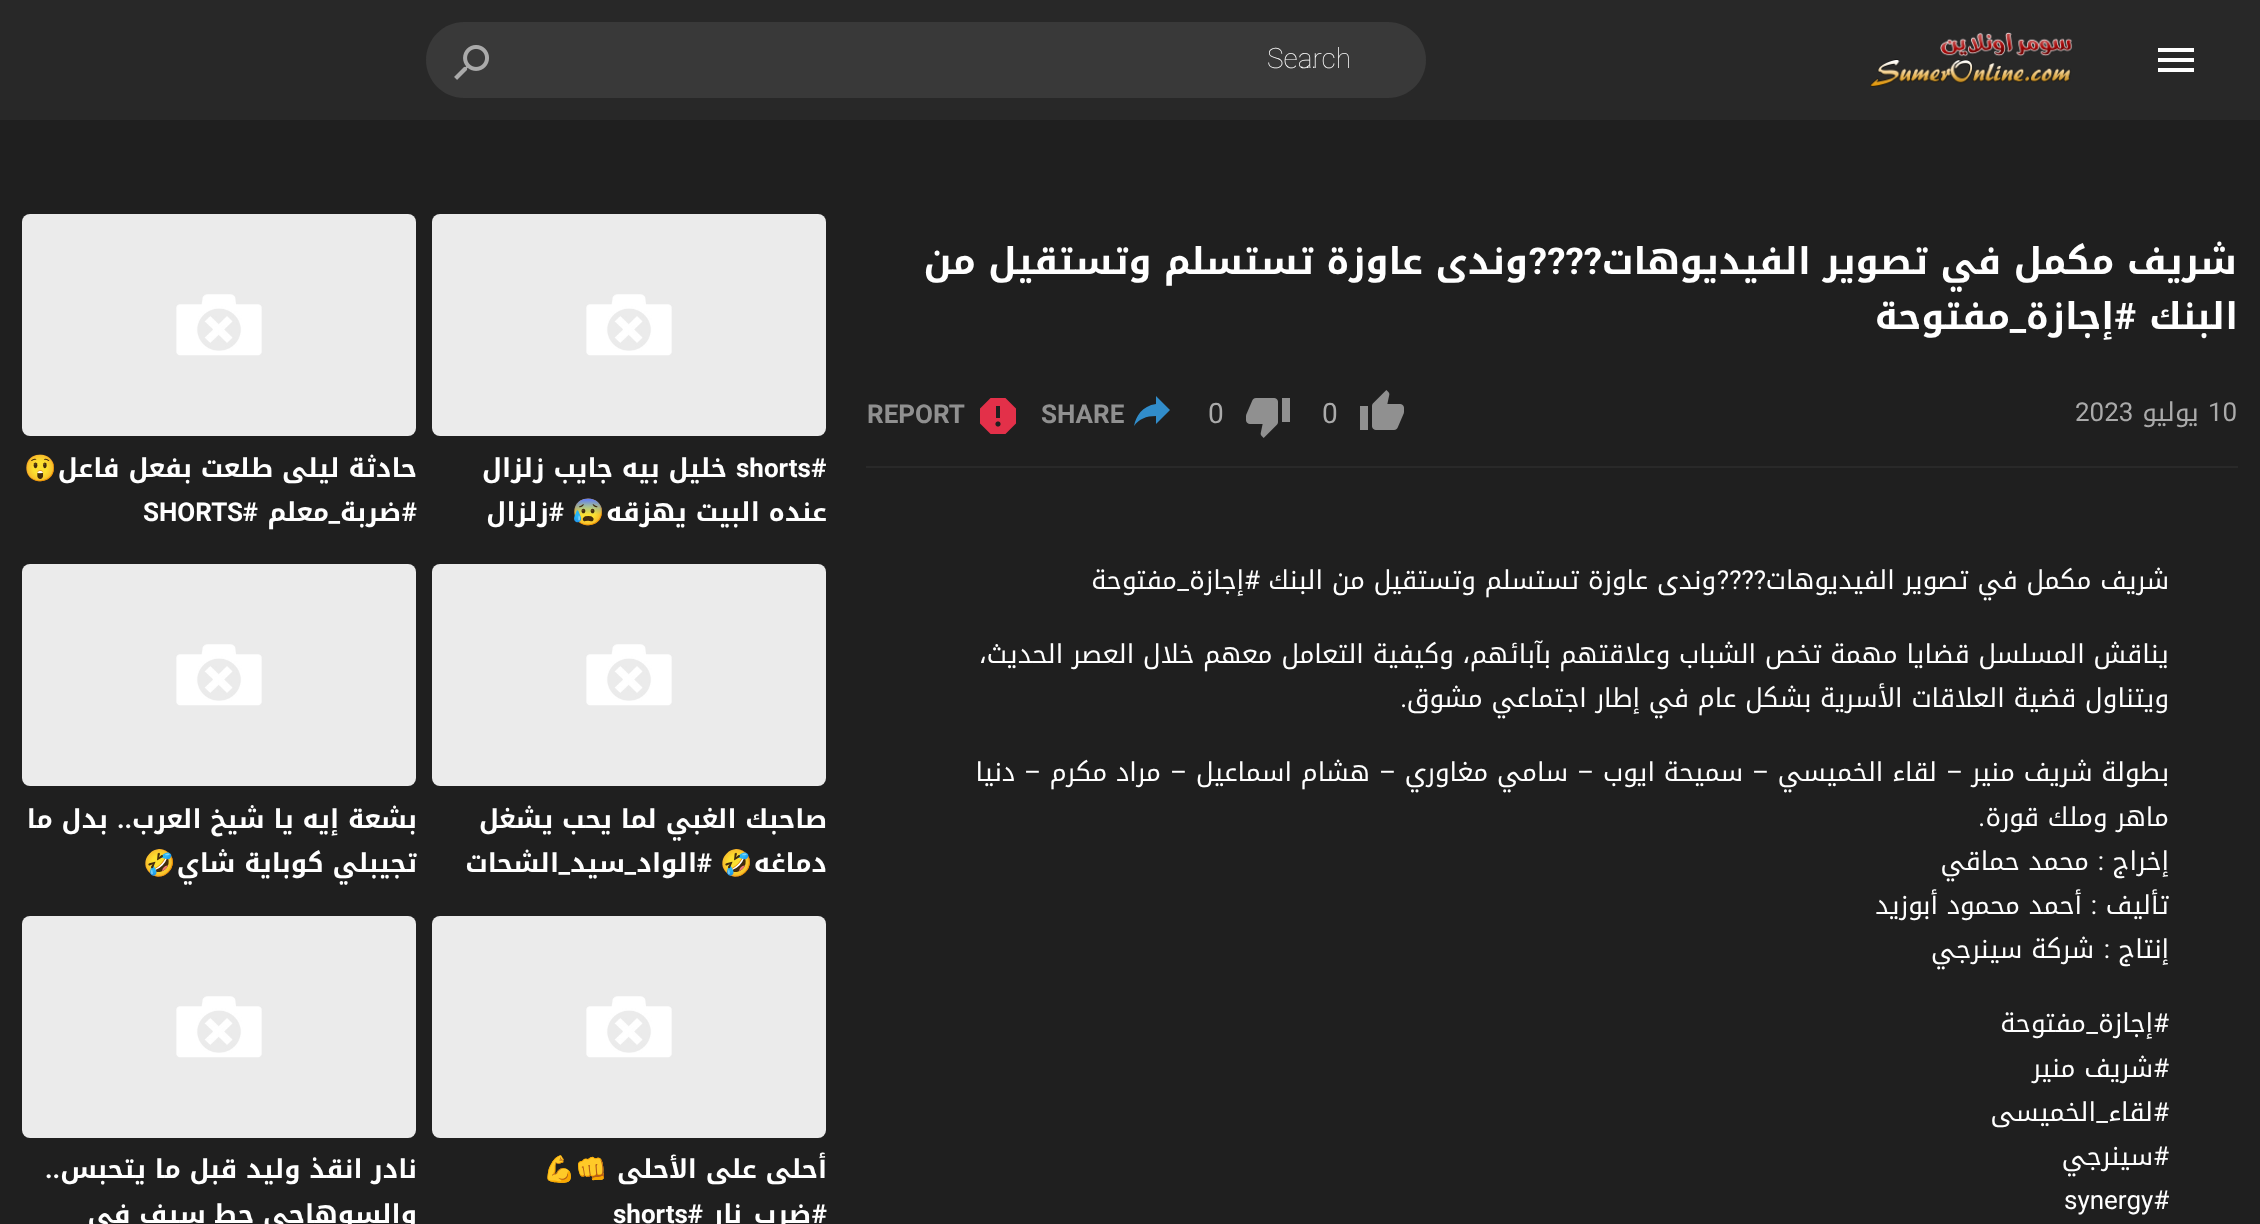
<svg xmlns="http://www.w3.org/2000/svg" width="2260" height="1224">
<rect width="100%" height="100%" fill="#1f1f1f"/>
<rect width="2260" height="120" fill="#282828"/>
<image x="2158" y="48" width="36" height="24" href="media/1.png"/>
<image x="1870" y="32" width="203" height="55" href="media/2.png"/>
<path d="M526 22h862c21 0 38 17 38 38c0 21-17 38-38 38h-862z" fill="#393939"/>
<text x="1267" y="68" style="font-family:Roboto;font-size:28px;font-weight:100;fill:#fff">Search</text>
<text x="1299" y="68" style="font-family:Roboto;font-size:28px;font-weight:100;fill:#fff">...</text>
<path d="M464 22h62v76h-62c-21 0-38-17-38-38c0-21 17-38 38-38z" fill="#393939"/>
<image x="454" y="45" width="35" height="35" href="media/3.png"/>
<text x="2237" y="274" style="font-family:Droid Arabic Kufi;font-size:36.75px;font-weight:bold;direction:rtl;fill:#fff">شريف مكمل في تصوير الفيديوهات</text>
<text x="1602" y="274" style="font-family:Roboto;font-size:36.75px;font-weight:bold;direction:rtl;fill:#fff">????</text>
<text x="1528" y="274" style="font-family:Droid Arabic Kufi;font-size:36.75px;font-weight:bold;direction:rtl;fill:#fff">وندى عاوزة تستسلم وتستقيل من</text>
<text x="2238" y="329" style="font-family:Droid Arabic Kufi;font-size:36.75px;font-weight:bold;direction:rtl;fill:#fff">البنك</text>
<text x="2136" y="329" style="font-family:Roboto;font-size:36.75px;font-weight:bold;direction:rtl;fill:#fff">#</text>
<text x="2114" y="329" style="font-family:Droid Arabic Kufi;font-size:36.75px;font-weight:bold;direction:rtl;fill:#fff">إجازة</text>
<text x="2010" y="329" style="font-family:Droid Arabic Kufi;font-size:36.75px;font-weight:bold;direction:rtl;fill:#fff">مفتوحة</text>
<text x="2026" y="329" style="font-family:Roboto;font-size:36.75px;font-weight:bold;direction:rtl;fill:#fff">_</text>
<rect x="866" y="466" width="1372" height="2" fill="#292929"/>
<text x="2208" y="421" style="font-family:Roboto;font-size:26px;fill:#aaa">10</text>
<text x="2199" y="421" style="font-family:Droid Arabic Kufi;font-size:26px;direction:rtl;fill:#aaa">يوليو</text>
<text x="2075" y="421" style="font-family:Roboto;font-size:26px;fill:#aaa">2023</text>
<image x="1360" y="390" width="44" height="40" href="media/4.png"/>
<text x="1322" y="423" style="font-family:Roboto;font-size:28px;fill:#aaa">0</text>
<image x="1246" y="398" width="44" height="40" href="media/5.png"/>
<text x="1208" y="423" style="font-family:Roboto;font-size:28px;fill:#aaa">0</text>
<path d="M1170 410l-14-14v8c-14 2-20 12-22 22c5-7 12-10 22-10v8z" fill="#318dcb"/>
<text x="1041" y="423" style="font-family:Roboto;font-size:26px;font-weight:bold;fill:#909090">SHARE</text>
<image x="980" y="398" width="36" height="36" href="media/6.png"/>
<text x="867" y="423" style="font-family:Roboto;font-size:26px;font-weight:bold;fill:#909090">REPORT</text>
<text x="2169" y="589" style="font-family:Droid Arabic Kufi;font-size:26px;direction:rtl;fill:#fff">شريف مكمل في تصوير الفيديوهات</text>
<text x="1766" y="589" style="font-family:Roboto;font-size:26px;direction:rtl;fill:#fff">????</text>
<text x="1716" y="589" style="font-family:Droid Arabic Kufi;font-size:26px;direction:rtl;fill:#fff">وندى عاوزة تستسلم وتستقيل من البنك</text>
<text x="1260" y="589" style="font-family:Roboto;font-size:26px;direction:rtl;fill:#fff">#</text>
<text x="1244" y="589" style="font-family:Droid Arabic Kufi;font-size:26px;direction:rtl;fill:#fff">إجازة</text>
<text x="1189" y="589" style="font-family:Roboto;font-size:26px;direction:rtl;fill:#fff">_</text>
<text x="1177" y="589" style="font-family:Droid Arabic Kufi;font-size:26px;direction:rtl;fill:#fff">مفتوحة</text>
<text x="2169" y="663" style="font-family:Droid Arabic Kufi;font-size:26px;direction:rtl;fill:#fff">يناقش المسلسل قضايا مهمة تخص الشباب وعلاقتهم بآبائهم، وكيفية التعامل معهم خلال العصر الحديث،</text>
<text x="2169" y="707" style="font-family:Droid Arabic Kufi;font-size:26px;direction:rtl;fill:#fff">ويتناول قضية العلاقات الأسرية بشكل عام في إطار اجتماعي مشوق</text>
<text x="1407" y="707" style="font-family:Roboto;font-size:26px;direction:rtl;fill:#fff">.</text>
<text x="2169" y="781" style="font-family:Droid Arabic Kufi;font-size:26px;direction:rtl;fill:#fff">بطولة شريف منير</text>
<text x="1963" y="781" style="font-family:Roboto;font-size:26px;direction:rtl;fill:#fff">–</text>
<text x="1937" y="781" style="font-family:Droid Arabic Kufi;font-size:26px;direction:rtl;fill:#fff">لقاء الخميسي</text>
<text x="1769" y="781" style="font-family:Roboto;font-size:26px;direction:rtl;fill:#fff">–</text>
<text x="1743" y="781" style="font-family:Droid Arabic Kufi;font-size:26px;direction:rtl;fill:#fff">سميحة ايوب</text>
<text x="1594" y="781" style="font-family:Roboto;font-size:26px;direction:rtl;fill:#fff">–</text>
<text x="1568" y="781" style="font-family:Droid Arabic Kufi;font-size:26px;direction:rtl;fill:#fff">سامي مغاوري</text>
<text x="1396" y="781" style="font-family:Roboto;font-size:26px;direction:rtl;fill:#fff">–</text>
<text x="1370" y="781" style="font-family:Droid Arabic Kufi;font-size:26px;direction:rtl;fill:#fff">هشام اسماعيل</text>
<text x="1187" y="781" style="font-family:Roboto;font-size:26px;direction:rtl;fill:#fff">–</text>
<text x="1161" y="781" style="font-family:Droid Arabic Kufi;font-size:26px;direction:rtl;fill:#fff">مراد مكرم</text>
<text x="1041" y="781" style="font-family:Roboto;font-size:26px;direction:rtl;fill:#fff">–</text>
<text x="1015" y="781" style="font-family:Droid Arabic Kufi;font-size:26px;direction:rtl;fill:#fff">دنيا</text>
<text x="2169" y="826" style="font-family:Droid Arabic Kufi;font-size:26px;direction:rtl;fill:#fff">ماهر وملك قورة</text>
<text x="1985" y="826" style="font-family:Roboto;font-size:26px;direction:rtl;fill:#fff">.</text>
<text x="2169" y="870" style="font-family:Droid Arabic Kufi;font-size:26px;direction:rtl;fill:#fff">إخراج</text>
<text x="2104" y="870" style="font-family:Roboto;font-size:26px;direction:rtl;fill:#fff">:</text>
<text x="2089" y="870" style="font-family:Droid Arabic Kufi;font-size:26px;direction:rtl;fill:#fff">محمد حماقي</text>
<text x="2169" y="914" style="font-family:Droid Arabic Kufi;font-size:26px;direction:rtl;fill:#fff">تأليف</text>
<text x="2097" y="914" style="font-family:Roboto;font-size:26px;direction:rtl;fill:#fff">:</text>
<text x="2082" y="914" style="font-family:Droid Arabic Kufi;font-size:26px;direction:rtl;fill:#fff">أحمد محمود أبوزيد</text>
<text x="2169" y="958" style="font-family:Droid Arabic Kufi;font-size:26px;direction:rtl;fill:#fff">إنتاج</text>
<text x="2110" y="958" style="font-family:Roboto;font-size:26px;direction:rtl;fill:#fff">:</text>
<text x="2094" y="958" style="font-family:Droid Arabic Kufi;font-size:26px;direction:rtl;fill:#fff">شركة سينرجي</text>
<text x="2169" y="1032" style="font-family:Roboto;font-size:26px;direction:rtl;fill:#fff">#</text>
<text x="2153" y="1032" style="font-family:Droid Arabic Kufi;font-size:26px;direction:rtl;fill:#fff">إجازة</text>
<text x="2086" y="1032" style="font-family:Droid Arabic Kufi;font-size:26px;direction:rtl;fill:#fff">مفتوحة</text>
<text x="2098" y="1032" style="font-family:Roboto;font-size:26px;direction:rtl;fill:#fff">_</text>
<text x="2169" y="1077" style="font-family:Roboto;font-size:26px;direction:rtl;fill:#fff">#</text>
<text x="2153" y="1077" style="font-family:Droid Arabic Kufi;font-size:26px;direction:rtl;fill:#fff">شريف منير</text>
<text x="2169" y="1121" style="font-family:Roboto;font-size:26px;direction:rtl;fill:#fff">#</text>
<text x="2153" y="1121" style="font-family:Droid Arabic Kufi;font-size:26px;direction:rtl;fill:#fff">لقاء</text>
<text x="2096" y="1121" style="font-family:Droid Arabic Kufi;font-size:26px;direction:rtl;fill:#fff">الخميسى</text>
<text x="2108" y="1121" style="font-family:Roboto;font-size:26px;direction:rtl;fill:#fff">_</text>
<text x="2169" y="1165" style="font-family:Roboto;font-size:26px;direction:rtl;fill:#fff">#</text>
<text x="2153" y="1165" style="font-family:Droid Arabic Kufi;font-size:26px;direction:rtl;fill:#fff">سينرجي</text>
<text x="2064" y="1209" style="font-family:Roboto;font-size:26px;fill:#fff">synergy#</text>
<image x="432" y="214" width="394" height="222" href="media/7.png"/>
<text x="736" y="477" style="font-family:Roboto;font-size:26px;font-weight:bold;fill:#fff">shorts#</text>
<text x="727" y="477" style="font-family:Droid Arabic Kufi;font-size:26px;font-weight:bold;direction:rtl;fill:#fff">خليل بيه جايب زلزال</text>
<text x="827" y="521" style="font-family:Droid Arabic Kufi;font-size:26px;font-weight:bold;direction:rtl;fill:#fff">عنده البيت يهزقه</text>
<text x="605" y="521" style="font-family:Noto Color Emoji;font-size:26px;font-weight:bold;direction:rtl;fill:#fff">😰</text>
<text x="564" y="521" style="font-family:Roboto;font-size:26px;font-weight:bold;direction:rtl;fill:#fff">#</text>
<text x="549" y="521" style="font-family:Droid Arabic Kufi;font-size:26px;font-weight:bold;direction:rtl;fill:#fff">زلزال</text>
<image x="22" y="214" width="394" height="222" href="media/7.png"/>
<text x="417" y="477" style="font-family:Droid Arabic Kufi;font-size:26px;font-weight:bold;direction:rtl;fill:#fff">حادثة ليلى طلعت بفعل فاعل</text>
<text x="57" y="477" style="font-family:Noto Color Emoji;font-size:26px;font-weight:bold;direction:rtl;fill:#fff">😲</text>
<text x="417" y="521" style="font-family:Roboto;font-size:26px;font-weight:bold;direction:rtl;fill:#fff">#</text>
<text x="401" y="521" style="font-family:Droid Arabic Kufi;font-size:26px;font-weight:bold;direction:rtl;fill:#fff">ضربة</text>
<text x="329" y="521" style="font-family:Droid Arabic Kufi;font-size:26px;font-weight:bold;direction:rtl;fill:#fff">معلم</text>
<text x="258" y="521" style="font-family:Roboto;font-size:26px;font-weight:bold;direction:rtl;fill:#fff">#</text>
<text x="143" y="521" style="font-family:Roboto;font-size:26px;font-weight:bold;fill:#fff">SHORTS</text>
<text x="340" y="521" style="font-family:Roboto;font-size:26px;font-weight:bold;direction:rtl;fill:#fff">_</text>
<image x="432" y="564" width="394" height="222" href="media/7.png"/>
<text x="827" y="828" style="font-family:Droid Arabic Kufi;font-size:26px;font-weight:bold;direction:rtl;fill:#fff">صاحبك الغبي لما يحب يشغل</text>
<text x="827" y="872" style="font-family:Droid Arabic Kufi;font-size:26px;font-weight:bold;direction:rtl;fill:#fff">دماغه</text>
<text x="753" y="872" style="font-family:Noto Color Emoji;font-size:26px;font-weight:bold;direction:rtl;fill:#fff">🤣</text>
<text x="712" y="872" style="font-family:Roboto;font-size:26px;font-weight:bold;direction:rtl;fill:#fff">#</text>
<text x="697" y="872" style="font-family:Droid Arabic Kufi;font-size:26px;font-weight:bold;direction:rtl;fill:#fff">الواد</text>
<text x="636" y="872" style="font-family:Roboto;font-size:26px;font-weight:bold;direction:rtl;fill:#fff">_</text>
<text x="625" y="872" style="font-family:Droid Arabic Kufi;font-size:26px;font-weight:bold;direction:rtl;fill:#fff">سيد</text>
<text x="570" y="872" style="font-family:Roboto;font-size:26px;font-weight:bold;direction:rtl;fill:#fff">_</text>
<text x="559" y="872" style="font-family:Droid Arabic Kufi;font-size:26px;font-weight:bold;direction:rtl;fill:#fff">الشحات</text>
<image x="22" y="564" width="394" height="222" href="media/7.png"/>
<text x="417" y="828" style="font-family:Droid Arabic Kufi;font-size:26px;font-weight:bold;direction:rtl;fill:#fff">بشعة إيه يا شيخ العرب</text>
<text x="132" y="828" style="font-family:Roboto;font-size:26px;font-weight:bold;direction:rtl;fill:#fff">..</text>
<text x="108" y="828" style="font-family:Droid Arabic Kufi;font-size:26px;font-weight:bold;direction:rtl;fill:#fff">بدل ما</text>
<text x="417" y="872" style="font-family:Droid Arabic Kufi;font-size:26px;font-weight:bold;direction:rtl;fill:#fff">تجيبلي كوباية شاي</text>
<text x="176" y="872" style="font-family:Noto Color Emoji;font-size:26px;font-weight:bold;direction:rtl;fill:#fff">🤣</text>
<image x="432" y="916" width="394" height="222" href="media/7.png"/>
<text x="827" y="1178" style="font-family:Droid Arabic Kufi;font-size:26px;font-weight:bold;direction:rtl;fill:#fff">أحلى على الأحلى</text>
<text x="608" y="1178" style="font-family:Noto Color Emoji;font-size:26px;font-weight:bold;direction:rtl;fill:#fff">👊💪</text>
<text x="827" y="1223" style="font-family:Roboto;font-size:26px;font-weight:bold;direction:rtl;fill:#fff">#</text>
<text x="811" y="1223" style="font-family:Droid Arabic Kufi;font-size:26px;font-weight:bold;direction:rtl;fill:#fff">ضرب</text>
<text x="742" y="1223" style="font-family:Droid Arabic Kufi;font-size:26px;font-weight:bold;direction:rtl;fill:#fff">نار</text>
<text x="703" y="1223" style="font-family:Roboto;font-size:26px;font-weight:bold;direction:rtl;fill:#fff">#</text>
<text x="613" y="1223" style="font-family:Roboto;font-size:26px;font-weight:bold;fill:#fff">shorts</text>
<image x="22" y="916" width="394" height="222" href="media/7.png"/>
<text x="417" y="1178" style="font-family:Droid Arabic Kufi;font-size:26px;font-weight:bold;direction:rtl;fill:#fff">نادر انقذ وليد قبل ما يتحبس</text>
<text x="60" y="1178" style="font-family:Roboto;font-size:26px;font-weight:bold;direction:rtl;fill:#fff">..</text>
<text x="417" y="1223" style="font-family:Droid Arabic Kufi;font-size:26px;font-weight:bold;direction:rtl;fill:#fff">والسوهاجي حط سيف في</text>
</svg>
